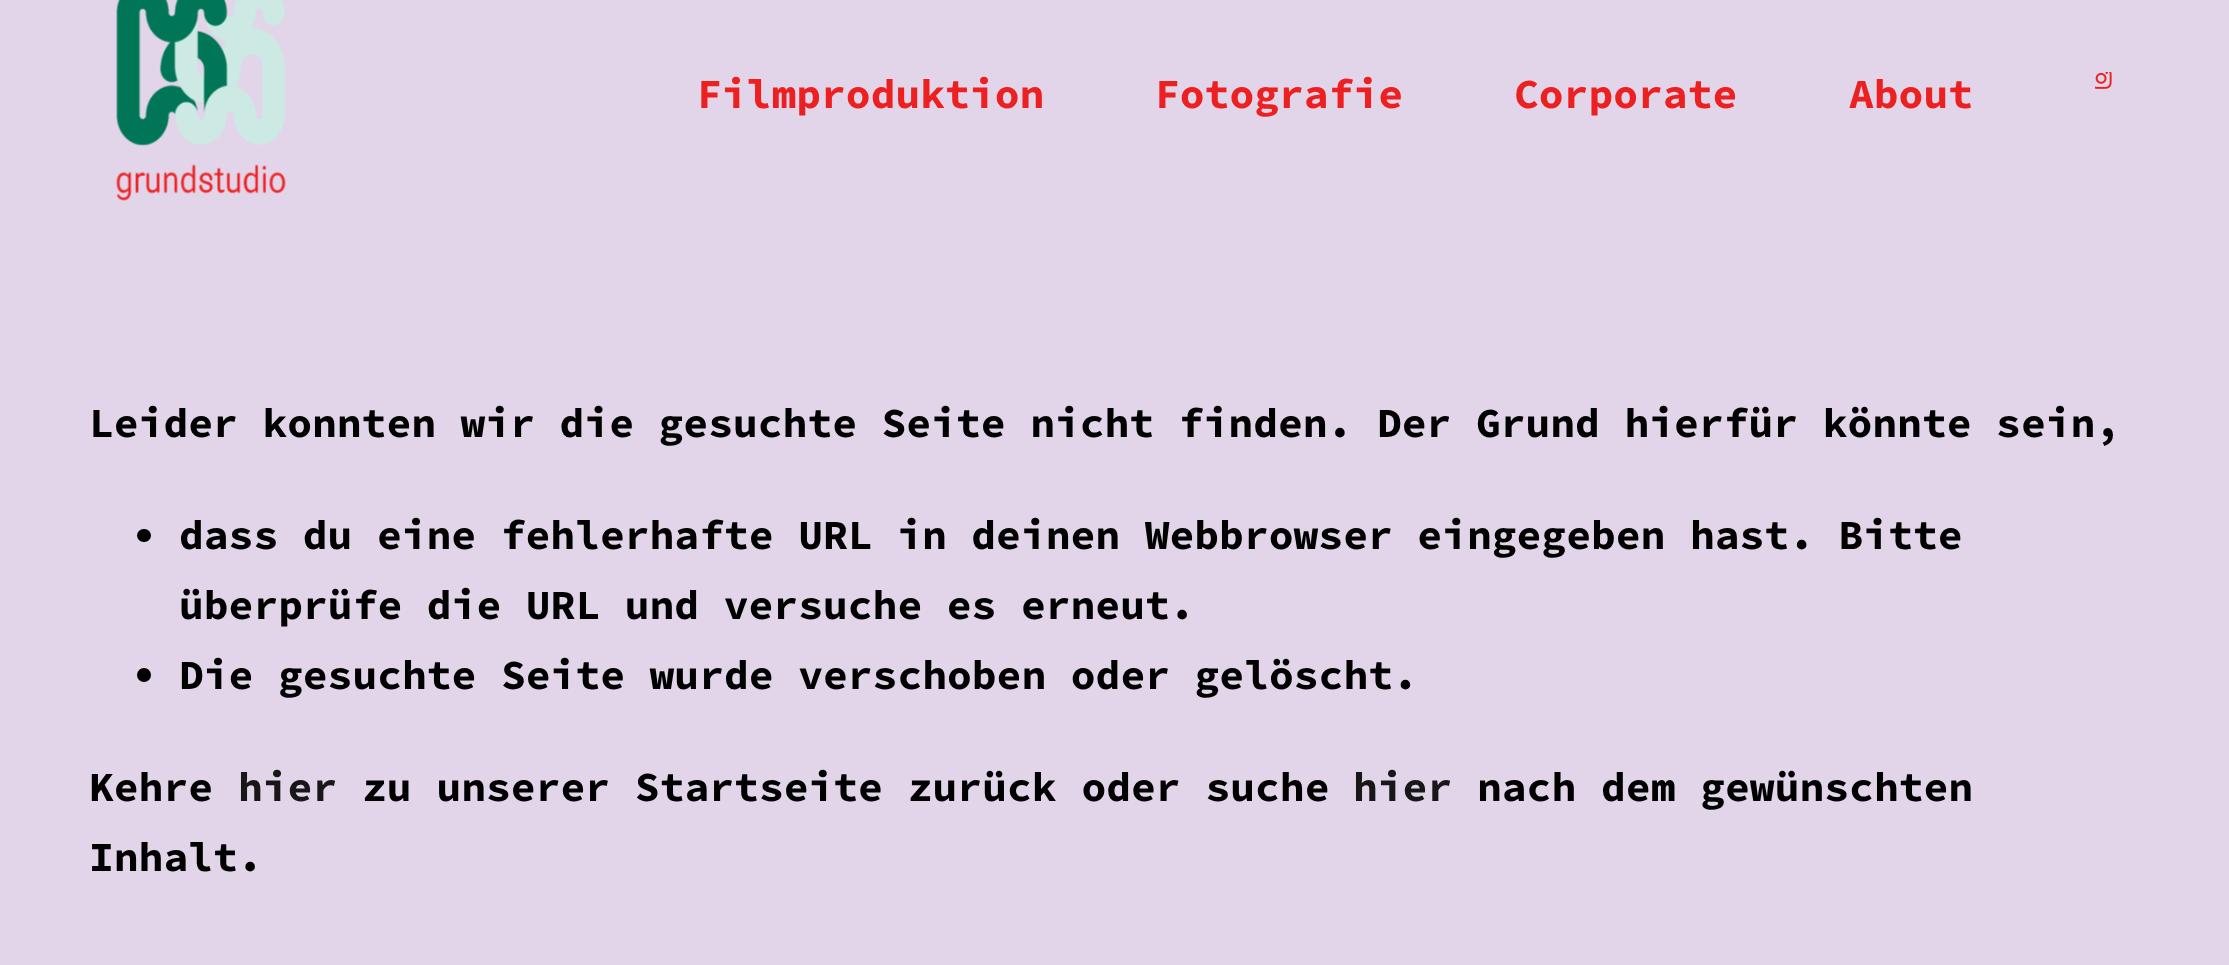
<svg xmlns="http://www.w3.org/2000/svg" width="2229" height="965">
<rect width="100%" height="100%" fill="#e2d5e9"/>
<image x="116" y="0" width="170" height="201" href="media/1.png"/>
<text x="697" y="108" style="font-family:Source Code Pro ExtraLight;font-size:41.35px;font-weight:bold;fill:#ed2021">Filmproduktion</text>
<text x="1155" y="108" style="font-family:Source Code Pro ExtraLight;font-size:41.35px;font-weight:bold;fill:#ed2021">Fotografie</text>
<text x="1514" y="108" style="font-family:Source Code Pro ExtraLight;font-size:41.35px;font-weight:bold;fill:#ed2021">Corporate</text>
<text x="1849" y="108" style="font-family:Source Code Pro ExtraLight;font-size:41.35px;font-weight:bold;fill:#ed2021">About</text>
<image x="2095" y="72" width="17" height="17" href="media/2.png"/>
<text x="89" y="437" word-spacing="-0.25" style="font-family:Source Code Pro ExtraLight;font-size:41.35px;font-weight:bold;fill:#000">Leider konnten wir die gesuchte Seite nicht finden. Der Grund hierfür könnte sein,</text>
<rect x="137" y="529" width="14" height="13" rx="6.5" fill="#000"/>
<text x="179" y="549" word-spacing="-0.25" style="font-family:Source Code Pro ExtraLight;font-size:41.35px;font-weight:bold;fill:#000">dass du eine fehlerhafte URL in deinen Webbrowser eingegeben hast. Bitte</text>
<text x="179" y="619" word-spacing="-0.25" style="font-family:Source Code Pro ExtraLight;font-size:41.35px;font-weight:bold;fill:#000">überprüfe die URL und versuche es erneut.</text>
<circle cx="144" cy="675" r="7" fill="#000"/>
<text x="179" y="689" word-spacing="-0.25" style="font-family:Source Code Pro ExtraLight;font-size:41.35px;font-weight:bold;fill:#000">Die gesuchte Seite wurde verschoben oder gelöscht.</text>
<text x="89" y="801" style="font-family:Source Code Pro ExtraLight;font-size:41.35px;font-weight:bold;fill:#000">Kehre</text>
<text x="238" y="801" style="font-family:Source Code Pro ExtraLight;font-size:41.35px;font-weight:bold;fill:#171717">hier</text>
<text x="362" y="801" style="font-family:Source Code Pro ExtraLight;font-size:41.35px;font-weight:bold;fill:#000">zu unserer Startseite zurück oder suche</text>
<text x="1353" y="801" style="font-family:Source Code Pro ExtraLight;font-size:41.35px;font-weight:bold;fill:#171717">hier</text>
<text x="1477" y="801" style="font-family:Source Code Pro ExtraLight;font-size:41.35px;font-weight:bold;fill:#000">nach dem gewünschten</text>
<text x="89" y="871" style="font-family:Source Code Pro ExtraLight;font-size:41.35px;font-weight:bold;fill:#000">Inhalt.</text>
</svg>
